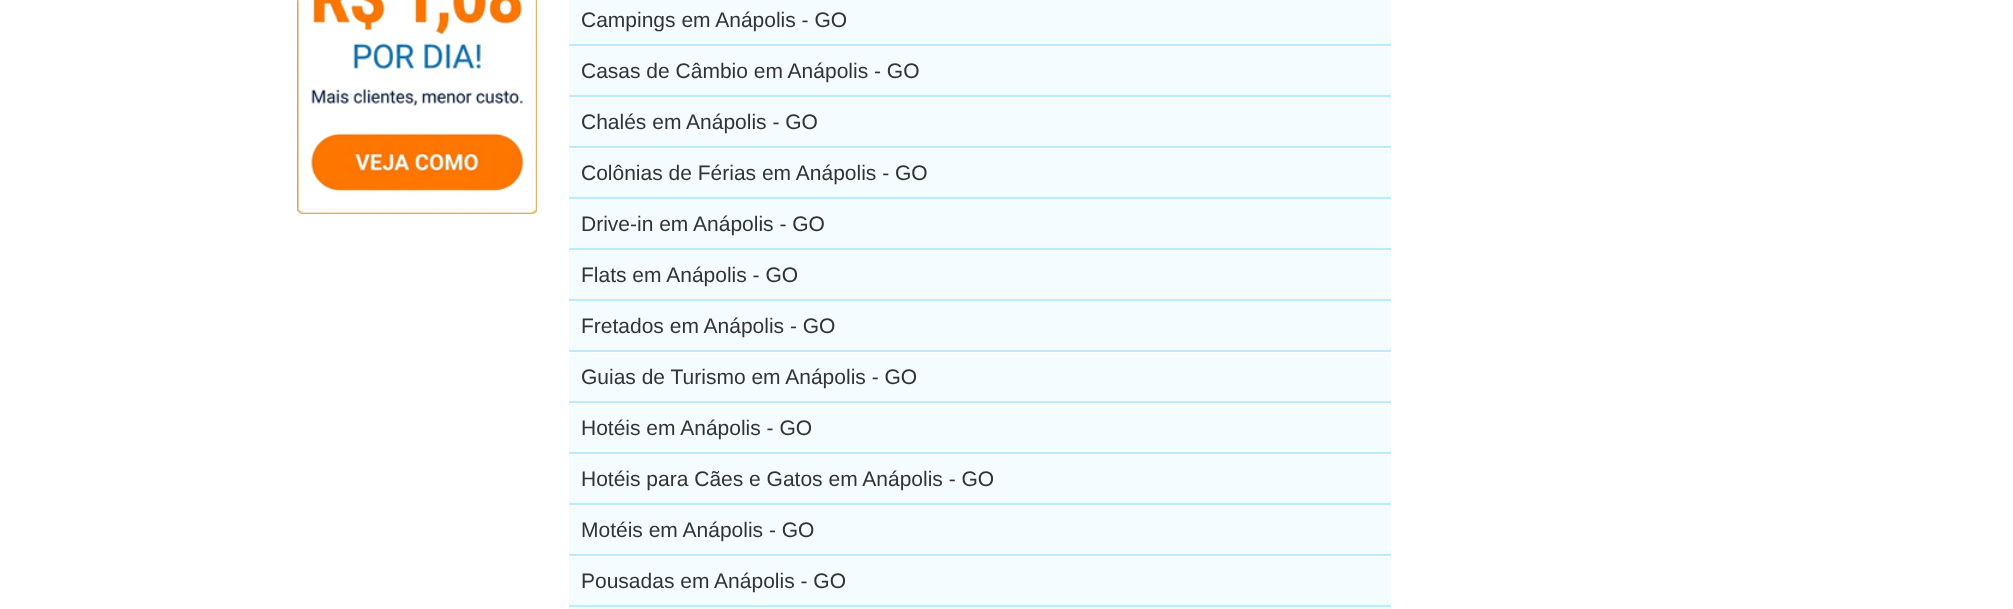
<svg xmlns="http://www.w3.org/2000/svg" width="2013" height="609">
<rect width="100%" height="100%" fill="#fff"/>
<image x="297" y="0" width="240" height="214" href="media/1.png"/>
<rect x="569" width="822" height="44" fill="#f4fcff"/>
<rect x="569" y="44" width="822" height="2" fill="#b9ecff"/>
<text x="581" y="27" style="font-family:Liberation Sans;font-size:21px;fill:#333">Campings em Anápolis - GO</text>
<rect x="569" y="47" width="822" height="48" fill="#f4fcff"/>
<rect x="569" y="95" width="822" height="2" fill="#b9ecff"/>
<text x="581" y="78" style="font-family:Liberation Sans;font-size:21px;fill:#333">Casas de Câmbio em Anápolis - GO</text>
<rect x="569" y="98" width="822" height="48" fill="#f4fcff"/>
<rect x="569" y="146" width="822" height="2" fill="#b9ecff"/>
<text x="581" y="129" style="font-family:Liberation Sans;font-size:21px;fill:#333">Chalés em Anápolis - GO</text>
<rect x="569" y="149" width="822" height="48" fill="#f4fcff"/>
<rect x="569" y="197" width="822" height="2" fill="#b9ecff"/>
<text x="581" y="180" style="font-family:Liberation Sans;font-size:21px;fill:#333">Colônias de Férias em Anápolis - GO</text>
<rect x="569" y="200" width="822" height="48" fill="#f4fcff"/>
<rect x="569" y="248" width="822" height="2" fill="#b9ecff"/>
<text x="581" y="231" style="font-family:Liberation Sans;font-size:21px;fill:#333">Drive-in em Anápolis - GO</text>
<rect x="569" y="251" width="822" height="48" fill="#f4fcff"/>
<rect x="569" y="299" width="822" height="2" fill="#b9ecff"/>
<text x="581" y="282" style="font-family:Liberation Sans;font-size:21px;fill:#333">Flats em Anápolis - GO</text>
<rect x="569" y="302" width="822" height="48" fill="#f4fcff"/>
<rect x="569" y="350" width="822" height="2" fill="#b9ecff"/>
<text x="581" y="333" style="font-family:Liberation Sans;font-size:21px;fill:#333">Fretados em Anápolis - GO</text>
<rect x="569" y="353" width="822" height="48" fill="#f4fcff"/>
<rect x="569" y="401" width="822" height="2" fill="#b9ecff"/>
<text x="581" y="384" style="font-family:Liberation Sans;font-size:21px;fill:#333">Guias de Turismo em Anápolis - GO</text>
<rect x="569" y="404" width="822" height="48" fill="#f4fcff"/>
<rect x="569" y="452" width="822" height="2" fill="#b9ecff"/>
<text x="581" y="435" style="font-family:Liberation Sans;font-size:21px;fill:#333">Hotéis em Anápolis - GO</text>
<rect x="569" y="455" width="822" height="48" fill="#f4fcff"/>
<rect x="569" y="503" width="822" height="2" fill="#b9ecff"/>
<text x="581" y="486" style="font-family:Liberation Sans;font-size:21px;fill:#333">Hotéis para Cães e Gatos em Anápolis - GO</text>
<rect x="569" y="506" width="822" height="48" fill="#f4fcff"/>
<rect x="569" y="554" width="822" height="2" fill="#b9ecff"/>
<text x="581" y="537" style="font-family:Liberation Sans;font-size:21px;fill:#333">Motéis em Anápolis - GO</text>
<rect x="569" y="557" width="822" height="48" fill="#f4fcff"/>
<rect x="569" y="605" width="822" height="2" fill="#b9ecff"/>
<text x="581" y="588" style="font-family:Liberation Sans;font-size:21px;fill:#333">Pousadas em Anápolis - GO</text>
<rect x="569" y="608" width="822" height="1" fill="#f4fcff"/>
</svg>
